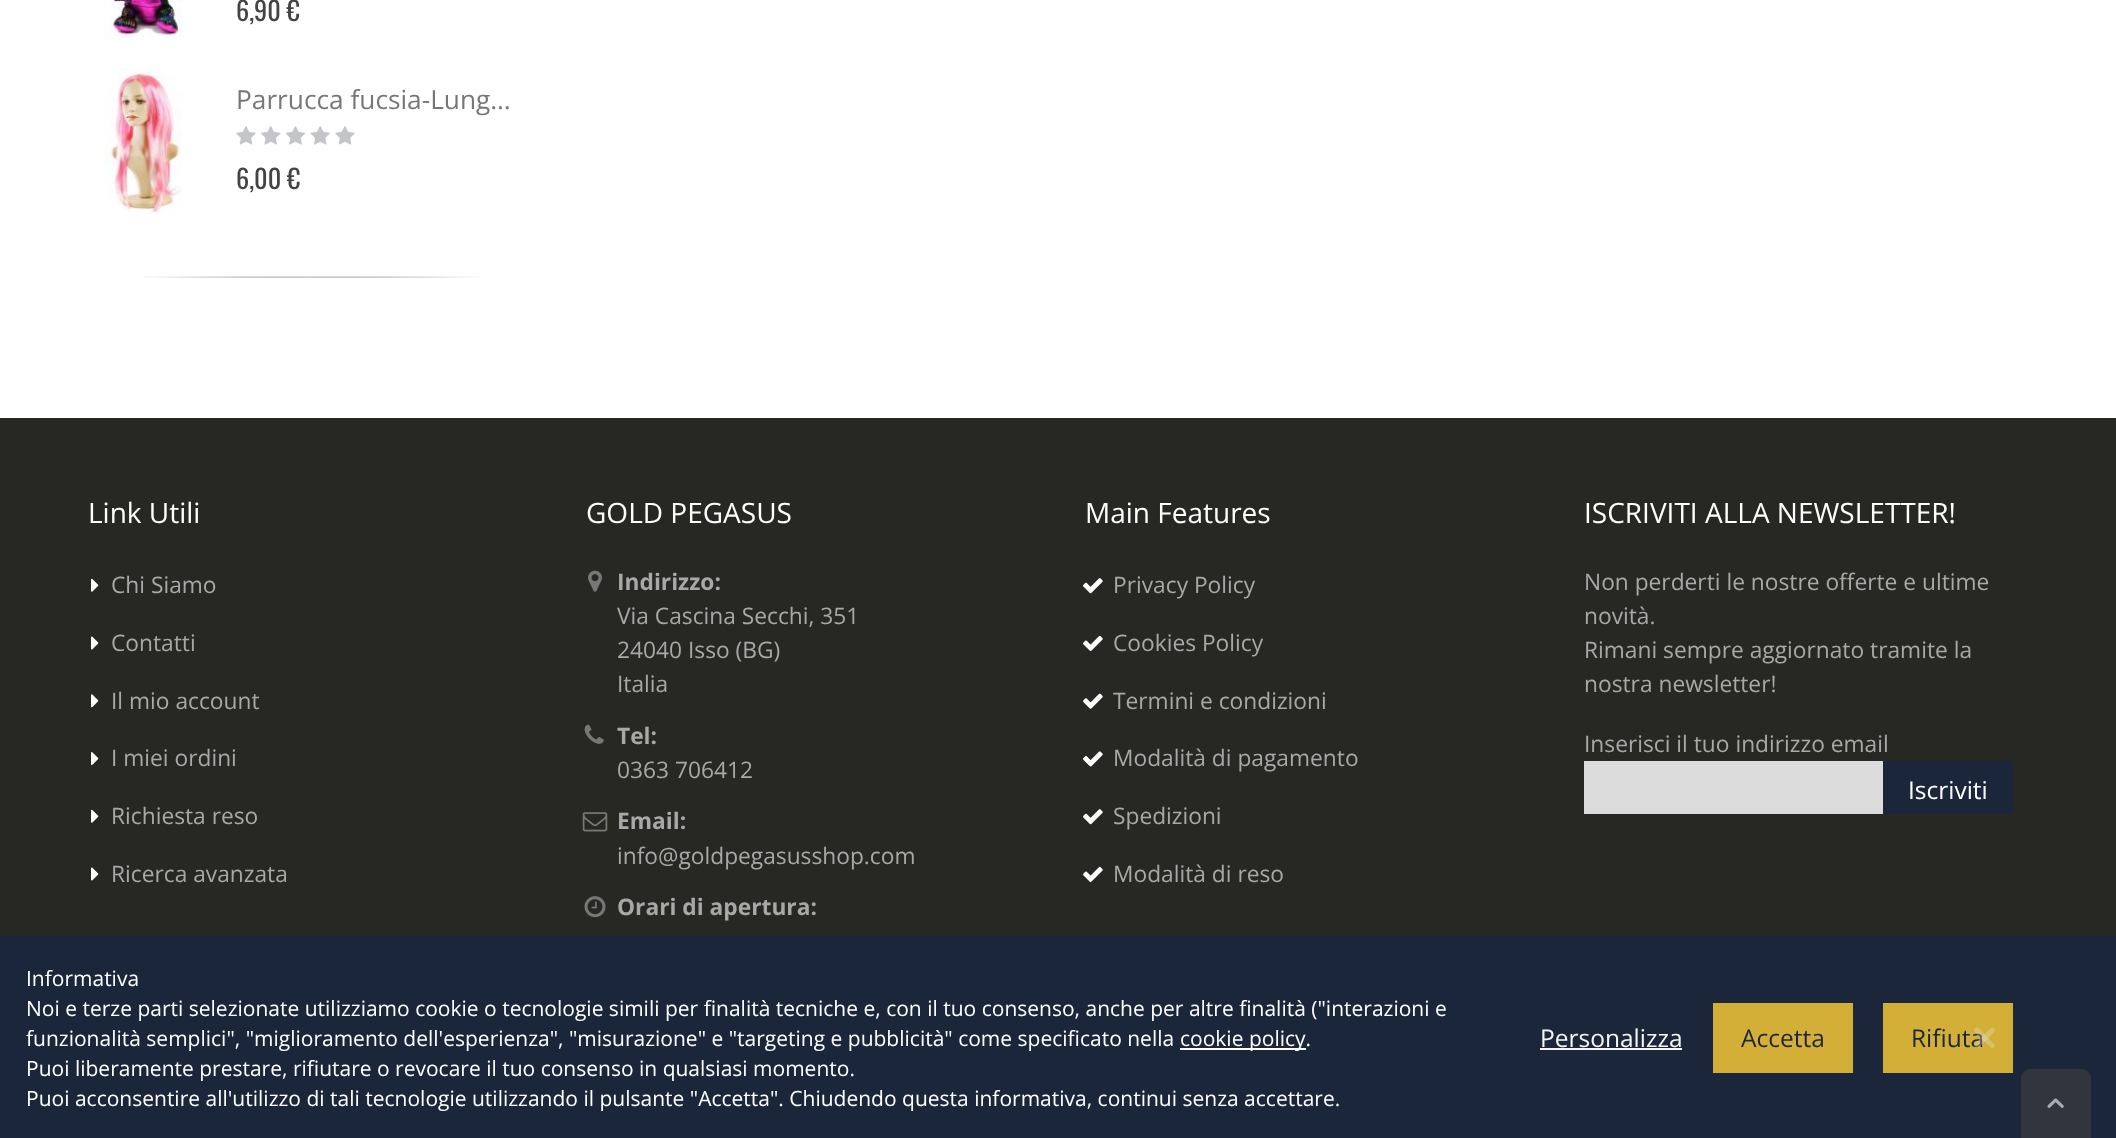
<svg xmlns="http://www.w3.org/2000/svg" width="2116" height="1138">
<rect width="100%" height="100%" fill="#fff"/>
<image x="143" y="276" width="337" height="2" href="media/1.png"/>
<image x="103" y="0" width="79" height="41" href="media/2.png"/>
<text x="236" y="21" style="font-family:Oswald;font-size:26.25px;fill:#444">6,90 €</text>
<image x="103" y="68" width="79" height="146" href="media/3.png"/>
<text x="236" y="109" style="font-family:Open Sans;font-size:26.25px;fill:#777">Parrucca fucsia-Lung…</text>
<image x="236" y="126" width="119" height="19" href="media/4.png"/>
<text x="236" y="189" style="font-family:Oswald;font-size:26.25px;fill:#444">6,00 €</text>
<rect y="418" width="2116" height="518" fill="#272723"/>
<text x="88" y="523" style="font-family:Open Sans;font-size:28px;fill:#fff">Link Utili</text>
<image x="91" y="578" width="8" height="14" href="media/5.png"/>
<text x="111" y="593" style="font-family:Open Sans;font-size:22.75px;fill:#a8a8a8">Chi Siamo</text>
<image x="91" y="636" width="8" height="14" href="media/6.png"/>
<text x="111" y="651" style="font-family:Open Sans;font-size:22.75px;fill:#a8a8a8">Contatti</text>
<image x="91" y="694" width="8" height="14" href="media/7.png"/>
<text x="111" y="709" style="font-family:Open Sans;font-size:22.75px;fill:#a8a8a8">Il mio account</text>
<image x="91" y="752" width="8" height="13" href="media/8.png"/>
<text x="111" y="766" style="font-family:Open Sans;font-size:22.75px;fill:#a8a8a8">I miei ordini</text>
<image x="91" y="809" width="8" height="14" href="media/5.png"/>
<text x="111" y="824" style="font-family:Open Sans;font-size:22.75px;fill:#a8a8a8">Richiesta reso</text>
<image x="91" y="867" width="8" height="14" href="media/6.png"/>
<text x="111" y="882" style="font-family:Open Sans;font-size:22.75px;fill:#a8a8a8">Ricerca avanzata</text>
<text x="586" y="523" style="font-family:Open Sans;font-size:28px;fill:#fff">GOLD PEGASUS</text>
<image x="588" y="570" width="14" height="22" href="media/9.png"/>
<text x="617" y="590" style="font-family:Open Sans;font-size:22.75px;font-weight:bold;fill:#a8a8a8">Indirizzo:</text>
<text x="617" y="624" style="font-family:Open Sans;font-size:22.75px;fill:#a8a8a8">Via Cascina Secchi, 351</text>
<text x="617" y="658" style="font-family:Open Sans;font-size:22.75px;fill:#a8a8a8">24040 Isso (BG)</text>
<text x="617" y="692" style="font-family:Open Sans;font-size:22.75px;fill:#a8a8a8">Italia</text>
<image x="584" y="724" width="20" height="20" href="media/10.png"/>
<text x="617" y="744" style="font-family:Open Sans;font-size:22.75px;font-weight:bold;fill:#a8a8a8">Tel:</text>
<text x="617" y="778" style="font-family:Open Sans;font-size:22.75px;fill:#a8a8a8">0363 706412</text>
<image x="582" y="812" width="26" height="20" href="media/11.png"/>
<text x="617" y="829" style="font-family:Open Sans;font-size:22.75px;font-weight:bold;fill:#a8a8a8">Email:</text>
<text x="617" y="864" style="font-family:Open Sans;font-size:22.75px;fill:#a8a8a8">info@goldpegasusshop.com</text>
<image x="584" y="896" width="22" height="22" href="media/12.png"/>
<text x="617" y="915" style="font-family:Open Sans;font-size:22.75px;font-weight:bold;fill:#a8a8a8">Orari di apertura:</text>
<text x="1085" y="523" style="font-family:Open Sans;font-size:28px;fill:#fff">Main Features</text>
<image x="1083" y="578" width="20" height="16" href="media/13.png"/>
<text x="1113" y="593" style="font-family:Open Sans;font-size:22.75px;fill:#a8a8a8">Privacy Policy</text>
<image x="1083" y="635" width="20" height="16" href="media/14.png"/>
<text x="1113" y="651" style="font-family:Open Sans;font-size:22.75px;fill:#a8a8a8">Cookies Policy</text>
<image x="1083" y="693" width="20" height="16" href="media/15.png"/>
<text x="1113" y="709" style="font-family:Open Sans;font-size:22.75px;fill:#a8a8a8">Termini e condizioni</text>
<image x="1083" y="751" width="20" height="16" href="media/16.png"/>
<text x="1113" y="766" style="font-family:Open Sans;font-size:22.75px;fill:#a8a8a8">Modalità di pagamento</text>
<image x="1083" y="809" width="20" height="16" href="media/13.png"/>
<text x="1113" y="824" style="font-family:Open Sans;font-size:22.75px;fill:#a8a8a8">Spedizioni</text>
<image x="1083" y="866" width="20" height="16" href="media/14.png"/>
<text x="1113" y="882" style="font-family:Open Sans;font-size:22.75px;fill:#a8a8a8">Modalità di reso</text>
<text x="1584" y="523" style="font-family:Open Sans;font-size:28px;fill:#fff">ISCRIVITI ALLA NEWSLETTER!</text>
<text x="1584" y="590" style="font-family:Open Sans;font-size:22.75px;fill:#a8a8a8">Non perderti le nostre offerte e ultime</text>
<text x="1584" y="624" style="font-family:Open Sans;font-size:22.75px;fill:#a8a8a8">novità.</text>
<text x="1584" y="658" style="font-family:Open Sans;font-size:22.75px;fill:#a8a8a8">Rimani sempre aggiornato tramite la</text>
<text x="1584" y="692" style="font-family:Open Sans;font-size:22.75px;fill:#a8a8a8">nostra newsletter!</text>
<text x="1584" y="752" style="font-family:Open Sans;font-size:22.75px;fill:#a8a8a8">Inserisci il tuo indirizzo email</text>
<rect x="1584" y="761" width="299" height="53" fill="#dcdcdc"/>
<rect x="1883" y="761" width="130" height="53" fill="#1b263b"/>
<text x="1908" y="799" style="font-family:Open Sans;font-size:24.5px;fill:#fff">Iscriviti</text>
<rect y="936" width="2116" height="202" fill="#1b263b"/>
<path d="M2030 1069h52c5 0 9 4 9 9v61h-70v-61c0-5 4-9 9-9z" fill="#31353e"/>
<image x="2047" y="1098" width="17" height="10" href="media/17.png"/>
<text x="26" y="986" style="font-family:Open Sans;font-size:21px;fill:#fff">Informativa</text>
<text x="26" y="1016" style="font-family:Open Sans;font-size:21px;fill:#fff">Noi e terze parti selezionate utilizziamo cookie o tecnologie simili per finalità tecniche e, con il tuo consenso, anche per altre finalità ("interazioni e</text>
<text x="26" y="1046" style="font-family:Open Sans;font-size:21px;fill:#fff">funzionalità semplici", "miglioramento dell'esperienza", "misurazione" e "targeting e pubblicità" come specificato nella</text>
<rect x="1180" y="1048" width="126" height="2" fill="#fff"/>
<text x="1180" y="1046" style="font-family:Open Sans;font-size:21px;fill:#fff">cookie policy.</text>
<text x="26" y="1076" style="font-family:Open Sans;font-size:21px;fill:#fff">Puoi liberamente prestare, rifiutare o revocare il tuo consenso in qualsiasi momento.</text>
<text x="26" y="1106" style="font-family:Open Sans;font-size:21px;fill:#fff">Puoi acconsentire all'utilizzo di tali tecnologie utilizzando il pulsante "Accetta". Chiudendo questa informativa, continui senza accettare.</text>
<text x="1540" y="1047" style="font-family:Open Sans;font-size:24.5px;fill:#f6f6f6">Personalizza</text>
<rect x="1540" y="1048" width="142" height="2" fill="#f6f6f6"/>
<rect x="1713" y="1003" width="140" height="70" fill="#d4af37"/>
<text x="1741" y="1047" style="font-family:Open Sans;font-size:24.5px;fill:#1b263b">Accetta</text>
<rect x="1883" y="1003" width="130" height="70" fill="#d4af37"/>
<text x="1911" y="1047" style="font-family:Open Sans;font-size:24.5px;fill:#1b263b">Rifiuta</text>
<path d="M1978.5 1028l16 16.5c1 1.5-1.5 4.5-3 3.5l-9-8c-1.5-1.5-8.5-8-8.5-9.5c0-1.5 3-4 4.5-2.5z" fill="#e6e6e64d"/>
<path d="M1974.5 1044l16.5-16c1.5-1.5 4.5 1.5 4 3l-8.5 9c-1.5 1-8 8.5-9.5 8.5c-1.5 0-4-3-2.5-4.5z" fill="#e6e6e64d"/>
</svg>
